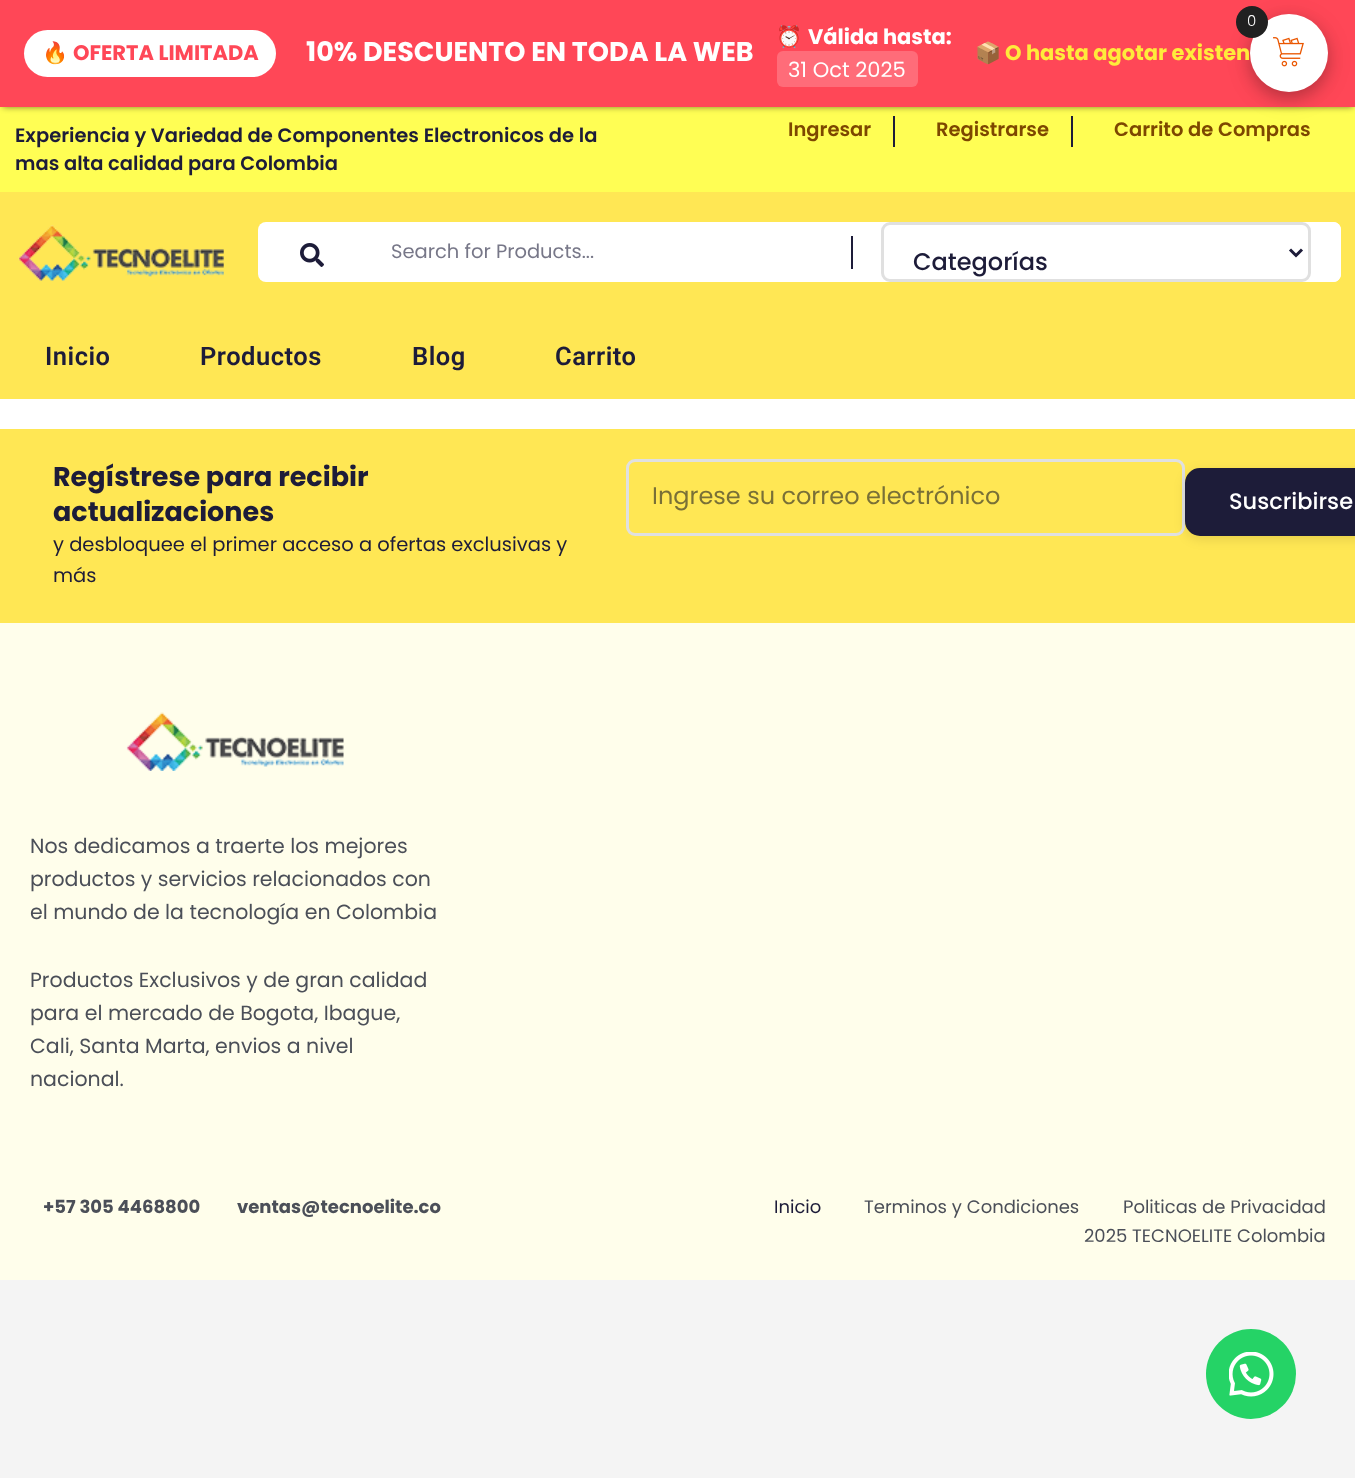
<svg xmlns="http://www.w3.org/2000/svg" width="1355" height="1478">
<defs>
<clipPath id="clip1"><path d="M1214 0h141v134h-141zm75 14c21.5 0 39 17.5 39 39c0 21.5-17.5 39-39 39c-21.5 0-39-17.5-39-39c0-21.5 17.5-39 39-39z" clip-rule="evenodd"/></clipPath>
</defs>
<rect width="100%" height="100%" fill="#f4f4f4"/>
<rect y="107" width="1355" height="85" fill="#fffe54"/>
<rect x="893" y="116" width="2" height="31" fill="#1d1c39"/>
<rect x="1071" y="116" width="2" height="31" fill="#1d1c39"/>
<rect x="3" y="6" width="1350" height="101" fill="#00000080" filter="blur(3px)"/>
<rect width="1355" height="107" fill="#ff4757"/>
<rect x="1250" y="20" width="78" height="78" rx="39" fill="#0000002b" filter="blur(7.5px)"/>
<circle cx="1289" cy="53" r="39" fill="#fff"/>
<g clip-path="url(#clip1)">
<rect x="1250" y="20" width="78" height="78" rx="39" fill="#00000026" filter="blur(11.5px)"/>
</g>
<circle cx="1252" cy="22" r="16" fill="#212121"/>
<text x="1247" y="26" style="font-family:Poppins;font-size:15px;font-weight:300;fill:#fff">0</text>
<image x="1273" y="37" width="31" height="30" href="media/1.png"/>
<rect x="24" y="30" width="252" height="47" rx="23.5" fill="#fff"/>
<text x="42" y="60" style="font-family:Noto Color Emoji;font-size:21px;font-weight:bold;fill:#ff4757">🔥</text>
<text x="73" y="60" style="font-family:Poppins;font-size:21px;font-weight:bold;fill:#ff4757">OFERTA LIMITADA</text>
<text x="306" y="61" style="font-family:Poppins;font-size:27px;font-weight:bold;fill:#fff">10% DESCUENTO EN TODA LA WEB</text>
<text x="776" y="44" style="font-family:Noto Color Emoji;font-size:21px;fill:#fff">⏰</text>
<text x="808" y="44" style="font-family:Poppins;font-size:21px;font-weight:bold;fill:#fff">Válida hasta:</text>
<rect x="777" y="51" width="141" height="36" rx="6" fill="#ff6c79"/>
<text x="788" y="77" style="font-family:Poppins;font-size:21px;fill:#fff">31 Oct 2025</text>
<text x="975" y="60" style="font-family:Noto Color Emoji;font-size:21px;font-weight:bold;fill:#ffeb3b">📦</text>
<text x="1005" y="60" style="font-family:Poppins;font-size:21px;font-weight:bold;fill:#ffeb3b">O hasta agotar existen</text>
<text x="15" y="142" style="font-family:Poppins;font-size:19.5px;font-weight:600;fill:#1d1c39">Experiencia y Variedad de Componentes Electronicos de la</text>
<text x="15" y="170" style="font-family:Poppins;font-size:19.5px;font-weight:600;fill:#1d1c39">mas alta calidad para Colombia</text>
<text x="788" y="136" style="font-family:Poppins;font-size:19.5px;font-weight:600;fill:#7d4700">Ingresar</text>
<text x="936" y="136" style="font-family:Poppins;font-size:19.5px;font-weight:600;fill:#7d4700">Registrarse</text>
<text x="1114" y="136" style="font-family:Poppins;font-size:19.5px;font-weight:600;fill:#7d4700">Carrito de Compras</text>
<rect y="192" width="1355" height="207" fill="#ffe754"/>
<image x="17" y="225" width="207" height="56" href="media/2.png"/>
<rect x="258" y="222" width="1083" height="60" rx="8" fill="#fff"/>
<image x="300" y="243" width="24" height="24" href="media/3.png"/>
<text x="391" y="258" style="font-family:Poppins;font-size:19.5px;fill:#778">Search for Products...</text>
<path d="M851 222h482c4.5 0 8 3.5 8 8v44c0 4.5-3.5 8-8 8h-482z" fill="#fff"/>
<rect x="851" y="236" width="2" height="33" fill="#1d1c39"/>
<rect x="882.5" y="223.5" width="427" height="57" rx="7.5" fill="none" stroke="#e0e0e0" stroke-width="3"/>
<path d="M1290 249.5l6 6l6-6" fill="none" stroke="#1d1c39" stroke-width="3"/>
<text x="913" y="270" style="font-family:Poppins;font-size:24px;font-weight:500;fill:#1d1c39">Categorías</text>
<text x="45" y="365" style="font-family:Roboto;font-size:25.5px;font-weight:600;letter-spacing:0.5px;fill:#1d1c39">Inicio</text>
<text x="200" y="365" style="font-family:Roboto;font-size:25.5px;font-weight:600;letter-spacing:0.5px;fill:#1d1c39">Productos</text>
<text x="412" y="365" style="font-family:Roboto;font-size:25.5px;font-weight:600;letter-spacing:0.5px;fill:#1d1c39">Blog</text>
<text x="555" y="365" style="font-family:Roboto;font-size:25.5px;font-weight:600;letter-spacing:0.5px;fill:#1d1c39">Carrito</text>
<rect y="399" width="1355" height="30" fill="#fff"/>
<rect y="429" width="1355" height="194" fill="#ffe754"/>
<text x="53" y="486" style="font-family:Poppins;font-size:27px;font-weight:bold;fill:#1d1c39">Regístrese para recibir</text>
<text x="53" y="521" style="font-family:Poppins;font-size:27px;font-weight:bold;fill:#1d1c39">actualizaciones</text>
<text x="53" y="551" style="font-family:Poppins;font-size:19.5px;fill:#1d1c39">y desbloquee el primer acceso a ofertas exclusivas y</text>
<text x="53" y="582" style="font-family:Poppins;font-size:19.5px;fill:#1d1c39">más</text>
<rect x="627.5" y="460.5" width="556" height="74" rx="7.5" fill="none" stroke="#e0e0e0" stroke-width="3"/>
<text x="652" y="504" style="font-family:Poppins;font-size:24px;fill:#797037">Ingrese su correo electrónico</text>
<rect x="1185" y="471" width="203" height="68" rx="15" fill="#0000001a" filter="blur(6px)"/>
<rect x="1186" y="469" width="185" height="66" rx="14" fill="#1d1c39" stroke="#1d1c39" stroke-width="2"/>
<text x="1229" y="509" style="font-family:Poppins;font-size:22.5px;font-weight:500;fill:#fff">Suscribirse</text>
<rect y="623" width="1355" height="657" fill="#fffeeb"/>
<image x="126" y="712" width="218" height="59" href="media/4.png"/>
<text x="30" y="853" style="font-family:Poppins;font-size:20.5px;fill:#4b4f58">Nos dedicamos a traerte los mejores</text>
<text x="30" y="886" style="font-family:Poppins;font-size:20.5px;fill:#4b4f58">productos y servicios relacionados con</text>
<text x="30" y="919" style="font-family:Poppins;font-size:20.5px;fill:#4b4f58">el mundo de la tecnología en Colombia</text>
<text x="30" y="987" style="font-family:Poppins;font-size:20.5px;fill:#4b4f58">Productos Exclusivos y de gran calidad</text>
<text x="30" y="1020" style="font-family:Poppins;font-size:20.5px;fill:#4b4f58">para el mercado de Bogota, Ibague,</text>
<text x="30" y="1053" style="font-family:Poppins;font-size:20.5px;fill:#4b4f58">Cali, Santa Marta, envios a nivel</text>
<text x="30" y="1086" style="font-family:Poppins;font-size:20.5px;fill:#4b4f58">nacional.</text>
<text x="43" y="1213" style="font-family:Poppins;font-size:18px;font-weight:bold;fill:#4b4f58">+57 305 4468800</text>
<text x="237" y="1213" style="font-family:Poppins;font-size:18px;font-weight:bold;fill:#4b4f58">ventas@tecnoelite.co</text>
<text x="774" y="1213" style="font-family:Poppins;font-size:18px;fill:#1d1c39">Inicio</text>
<text x="864" y="1213" style="font-family:Poppins;font-size:18px;fill:#4b4f58">Terminos y Condiciones</text>
<text x="1123" y="1213" style="font-family:Poppins;font-size:18px;fill:#4b4f58">Politicas de Privacidad</text>
<text x="1084" y="1242" style="font-family:Poppins;font-size:18px;fill:#4b4f58">2025 TECNOELITE Colombia</text>
<circle cx="1251" cy="1374" r="45" fill="#25d366"/>
<image x="1229" y="1352" width="45" height="45" href="media/5.png"/>
</svg>
